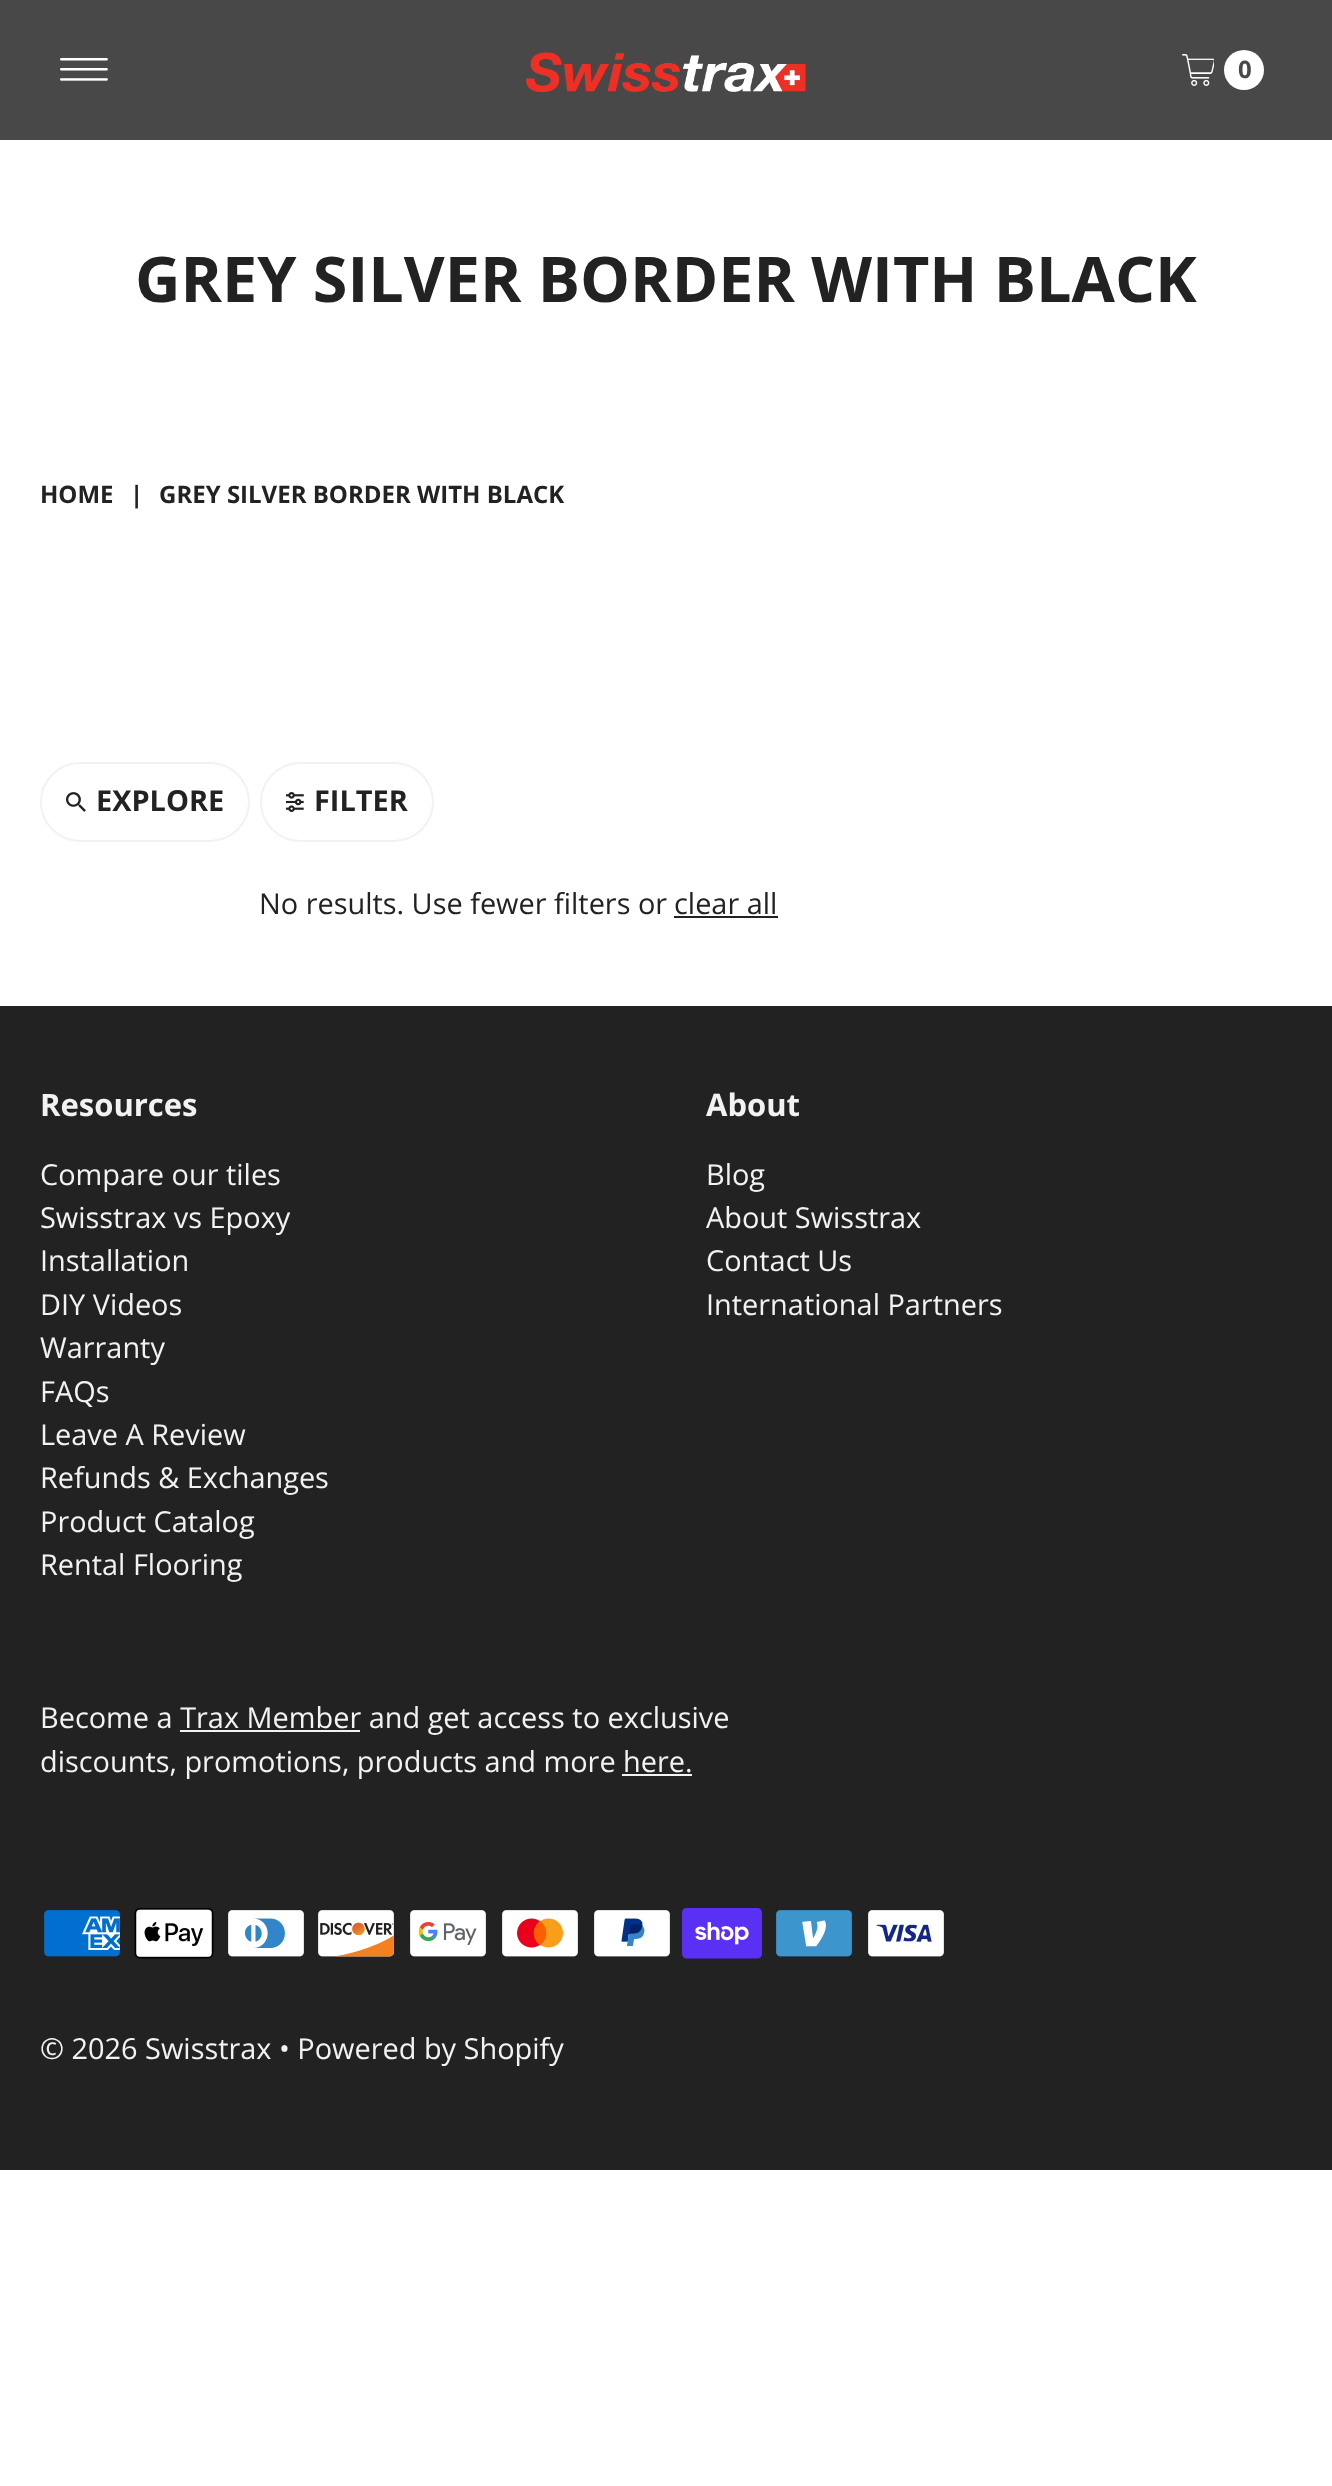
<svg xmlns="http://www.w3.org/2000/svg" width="1332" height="2486">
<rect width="100%" height="100%" fill="#fff"/>
<rect width="1332" height="140" fill="#484848"/>
<image x="60" y="58" width="48" height="23" href="media/1.png"/>
<image x="526" y="52" width="280" height="40" href="media/2.png"/>
<image x="1182" y="54" width="32" height="32" href="media/3.png"/>
<circle cx="1244" cy="70" r="20" fill="#fff"/>
<text x="1238" y="78" style="font-family:Open Sans;font-size:24px;font-weight:bold;fill:#484848">0</text>
<text x="135" y="302" style="font-family:Open Sans;font-size:62.9px;font-weight:bold;fill:#222">GREY SILVER BORDER WITH BLACK</text>
<text x="40" y="503" style="font-family:Open Sans;font-size:24px;font-weight:bold;fill:#222">HOME</text>
<text x="130" y="503" style="font-family:Open Sans;font-size:24px;font-weight:bold;fill:#222">|</text>
<text x="159" y="503" style="font-family:Open Sans;font-size:24px;font-weight:bold;fill:#222">GREY SILVER BORDER WITH BLACK</text>
<rect x="41" y="763" width="208" height="78" rx="39" fill="none" stroke="#f2f2f2" stroke-width="2"/>
<image x="66" y="792" width="20" height="20" href="media/4.png"/>
<text x="96" y="811" style="font-family:Open Sans;font-size:28.9px;font-weight:bold;fill:#222">EXPLORE</text>
<rect x="261" y="763" width="172" height="78" rx="39" fill="none" stroke="#f2f2f2" stroke-width="2"/>
<image x="286" y="792" width="18" height="20" href="media/5.png"/>
<text x="314" y="811" style="font-family:Open Sans;font-size:28.9px;font-weight:bold;fill:#222">FILTER</text>
<text x="259" y="914" style="font-family:Open Sans;font-size:28.9px;fill:#222">No results. Use fewer filters or</text>
<text x="674" y="914" style="font-family:Open Sans;font-size:28.9px;fill:#222">clear all</text>
<rect x="674" y="916" width="104" height="2" fill="#222"/>
<rect y="1006" width="1332" height="1164" fill="#222"/>
<text x="40" y="1116" style="font-family:Open Sans;font-size:31px;font-weight:bold;fill:#f2f2f2">Resources</text>
<text x="40" y="1185" style="font-family:Open Sans;font-size:28.9px;fill:#f2f2f2">Compare our tiles</text>
<text x="40" y="1228" style="font-family:Open Sans;font-size:28.9px;fill:#f2f2f2">Swisstrax vs Epoxy</text>
<text x="40" y="1271" style="font-family:Open Sans;font-size:28.9px;fill:#f2f2f2">Installation</text>
<text x="40" y="1315" style="font-family:Open Sans;font-size:28.9px;fill:#f2f2f2">DIY Videos</text>
<text x="40" y="1358" style="font-family:Open Sans;font-size:28.9px;fill:#f2f2f2">Warranty</text>
<text x="40" y="1402" style="font-family:Open Sans;font-size:28.9px;fill:#f2f2f2">FAQs</text>
<text x="40" y="1445" style="font-family:Open Sans;font-size:28.9px;fill:#f2f2f2">Leave A Review</text>
<text x="40" y="1488" style="font-family:Open Sans;font-size:28.9px;fill:#f2f2f2">Refunds &amp; Exchanges</text>
<text x="40" y="1532" style="font-family:Open Sans;font-size:28.9px;fill:#f2f2f2">Product Catalog</text>
<text x="40" y="1575" style="font-family:Open Sans;font-size:28.9px;fill:#f2f2f2">Rental Flooring</text>
<text x="706" y="1116" style="font-family:Open Sans;font-size:31px;font-weight:bold;fill:#f2f2f2">About</text>
<text x="706" y="1185" style="font-family:Open Sans;font-size:28.9px;fill:#f2f2f2">Blog</text>
<text x="706" y="1228" style="font-family:Open Sans;font-size:28.9px;fill:#f2f2f2">About Swisstrax</text>
<text x="706" y="1271" style="font-family:Open Sans;font-size:28.9px;fill:#f2f2f2">Contact Us</text>
<text x="706" y="1315" style="font-family:Open Sans;font-size:28.9px;fill:#f2f2f2">International Partners</text>
<text x="40" y="1728" style="font-family:Open Sans;font-size:28.9px;fill:#f2f2f2">Become a Trax Member and get access to exclusive</text>
<rect x="180" y="1730" width="180" height="2" fill="#f2f2f2"/>
<text x="40" y="1772" style="font-family:Open Sans;font-size:28.9px;fill:#f2f2f2">discounts, promotions, products and more</text>
<text x="623" y="1772" style="font-family:Open Sans;font-size:28.9px;fill:#f2f2f2">here.</text>
<rect x="622" y="1774" width="70" height="2" fill="#f2f2f2"/>
<image x="44" y="1910" width="76" height="47" href="media/6.png"/>
<image x="134" y="1908" width="80" height="51" href="media/7.png"/>
<image x="228" y="1910" width="76" height="47" href="media/8.png"/>
<image x="318" y="1910" width="76" height="47" href="media/9.png"/>
<image x="410" y="1910" width="76" height="47" href="media/10.png"/>
<image x="502" y="1910" width="76" height="47" href="media/11.png"/>
<image x="594" y="1910" width="76" height="47" href="media/12.png"/>
<image x="682" y="1908" width="80" height="51" href="media/13.png"/>
<image x="776" y="1910" width="76" height="47" href="media/14.png"/>
<image x="868" y="1910" width="76" height="47" href="media/15.png"/>
<text x="40" y="2059" style="font-family:Open Sans;font-size:28.9px;fill:#f2f2f2">© 2026 Swisstrax • Powered by Shopify</text>
</svg>
